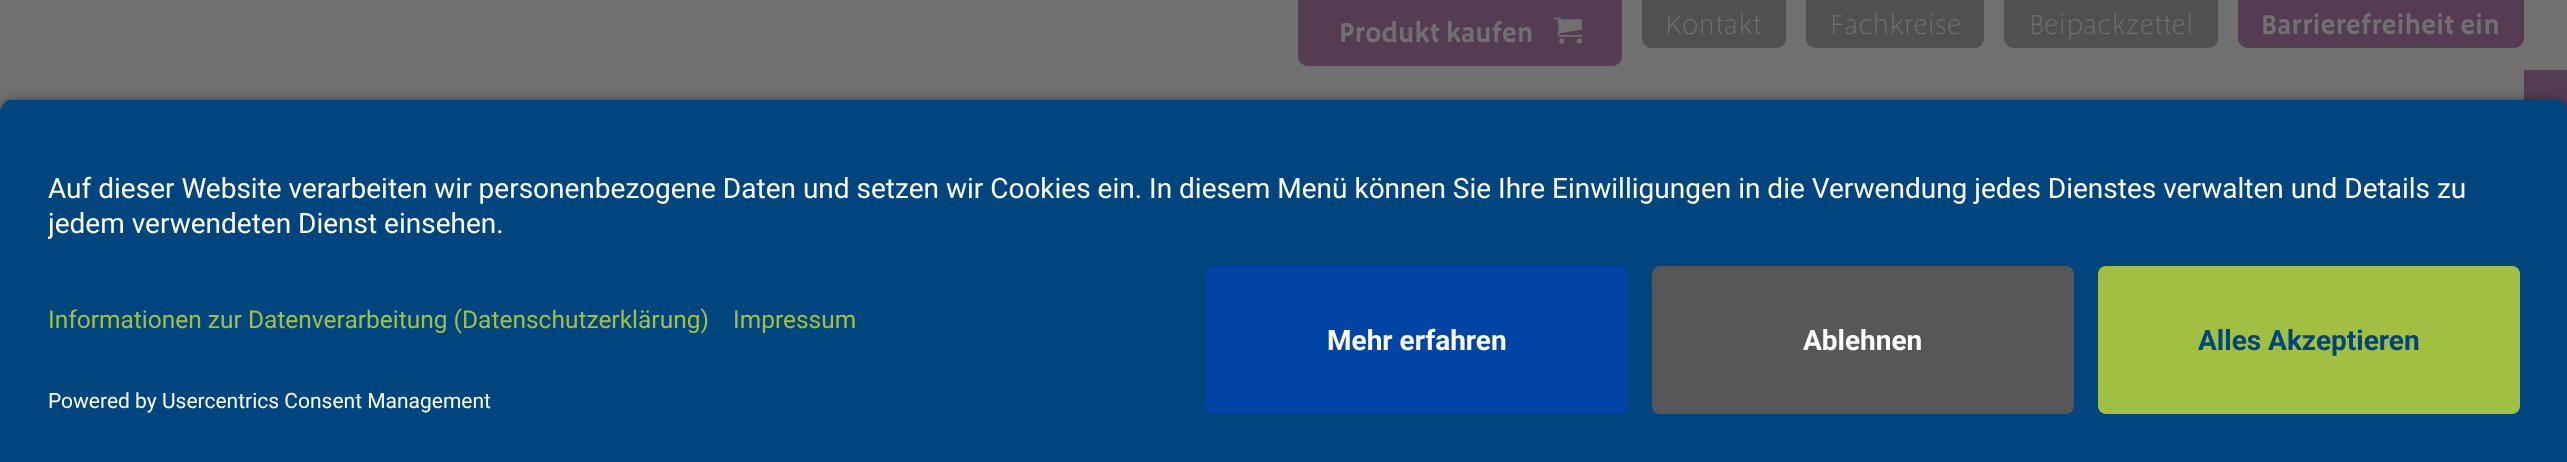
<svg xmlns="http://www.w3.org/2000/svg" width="2567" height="462">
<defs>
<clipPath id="clip1"><path d="M16 98h2536c9 0 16 7 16 16v136h-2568v-136c0-9 7-16 16-16z"/></clipPath>
<clipPath id="clip2"><rect x="48" y="164" width="2472" height="86"/></clipPath>
</defs>
<rect width="100%" height="100%" fill="#707070"/>
<path d="M1298 0h324v56c0 5.5-4.5 10-10 10h-304c-5.5 0-10-4.5-10-10z" fill="#543d52"/>
<text x="1339" y="42" style="font-family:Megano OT;font-size:28px;fill:#707070">Produkt kaufen</text>
<image x="1554" y="17" width="28" height="27" href="media/1.png"/>
<path d="M1642 0h144v38c0 5.5-4.5 10-10 10h-124c-5.5 0-10-4.5-10-10z" fill="#505050"/>
<text x="1665" y="34" style="font-family:'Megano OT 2';font-size:28px;fill:#707070">Kontakt</text>
<path d="M1806 0h178v38c0 5.5-4.5 10-10 10h-158c-5.5 0-10-4.5-10-10z" fill="#505050"/>
<text x="1830" y="34" style="font-family:'Megano OT 2';font-size:28px;fill:#707070">Fachkreise</text>
<path d="M2004 0h214v38c0 5.5-4.5 10-10 10h-194c-5.5 0-10-4.5-10-10z" fill="#505050"/>
<text x="2029" y="34" style="font-family:'Megano OT 2';font-size:28px;fill:#707070">Beipackzettel</text>
<path d="M2238 0h286v38c0 5.5-4.5 10-10 10h-266c-5.5 0-10-4.5-10-10z" fill="#543d52"/>
<text x="2261" y="34" style="font-family:Megano OT;font-size:28px;fill:#707070">Barrierefreiheit ein</text>
<rect x="2524" y="70" width="43" height="39" fill="#543d52"/>
<rect y="104" width="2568" height="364" rx="16" fill="#000000cc" filter="blur(7px)"/>
<g clip-path="url(#clip1)">
<rect y="100" width="2567" height="150" fill="#00457d"/>
</g>
<text x="48" y="198" style="font-family:Roboto;font-size:28px;fill:#fff">Auf dieser Website verarbeiten wir personenbezogene Daten und setzen wir Cookies ein. In diesem Menü können Sie Ihre Einwilligungen in die Verwendung jedes Dienstes verwalten und Details zu</text>
<g clip-path="url(#clip2)">
<text x="48" y="233" style="font-family:Roboto;font-size:28px;fill:#fff">jedem verwendeten Dienst einsehen.</text>
</g>
<rect y="250" width="2567" height="212" fill="#00457d"/>
<text x="48" y="328" style="font-family:Roboto;font-size:24.5px;fill:#a1c043">Informationen zur Datenverarbeitung (Datenschutzerklärung)</text>
<text x="733" y="328" style="font-family:Roboto;font-size:24.5px;fill:#a1c043">Impressum</text>
<text x="48" y="408" style="font-family:Roboto;font-size:21px;fill:#fff">Powered by Usercentrics Consent Management</text>
<rect x="1206" y="266" width="422" height="148" rx="8" fill="#0045a5"/>
<text x="1327" y="350" style="font-family:Roboto;font-size:28px;font-weight:bold;fill:#fff">Mehr erfahren</text>
<rect x="1652" y="266" width="422" height="148" rx="8" fill="#57575a"/>
<text x="1803" y="350" style="font-family:Roboto;font-size:28px;font-weight:bold;fill:#fff">Ablehnen</text>
<rect x="2098" y="266" width="422" height="148" rx="8" fill="#a1c043"/>
<text x="2198" y="350" style="font-family:Roboto;font-size:28px;font-weight:bold;fill:#00457d">Alles Akzeptieren</text>
</svg>
